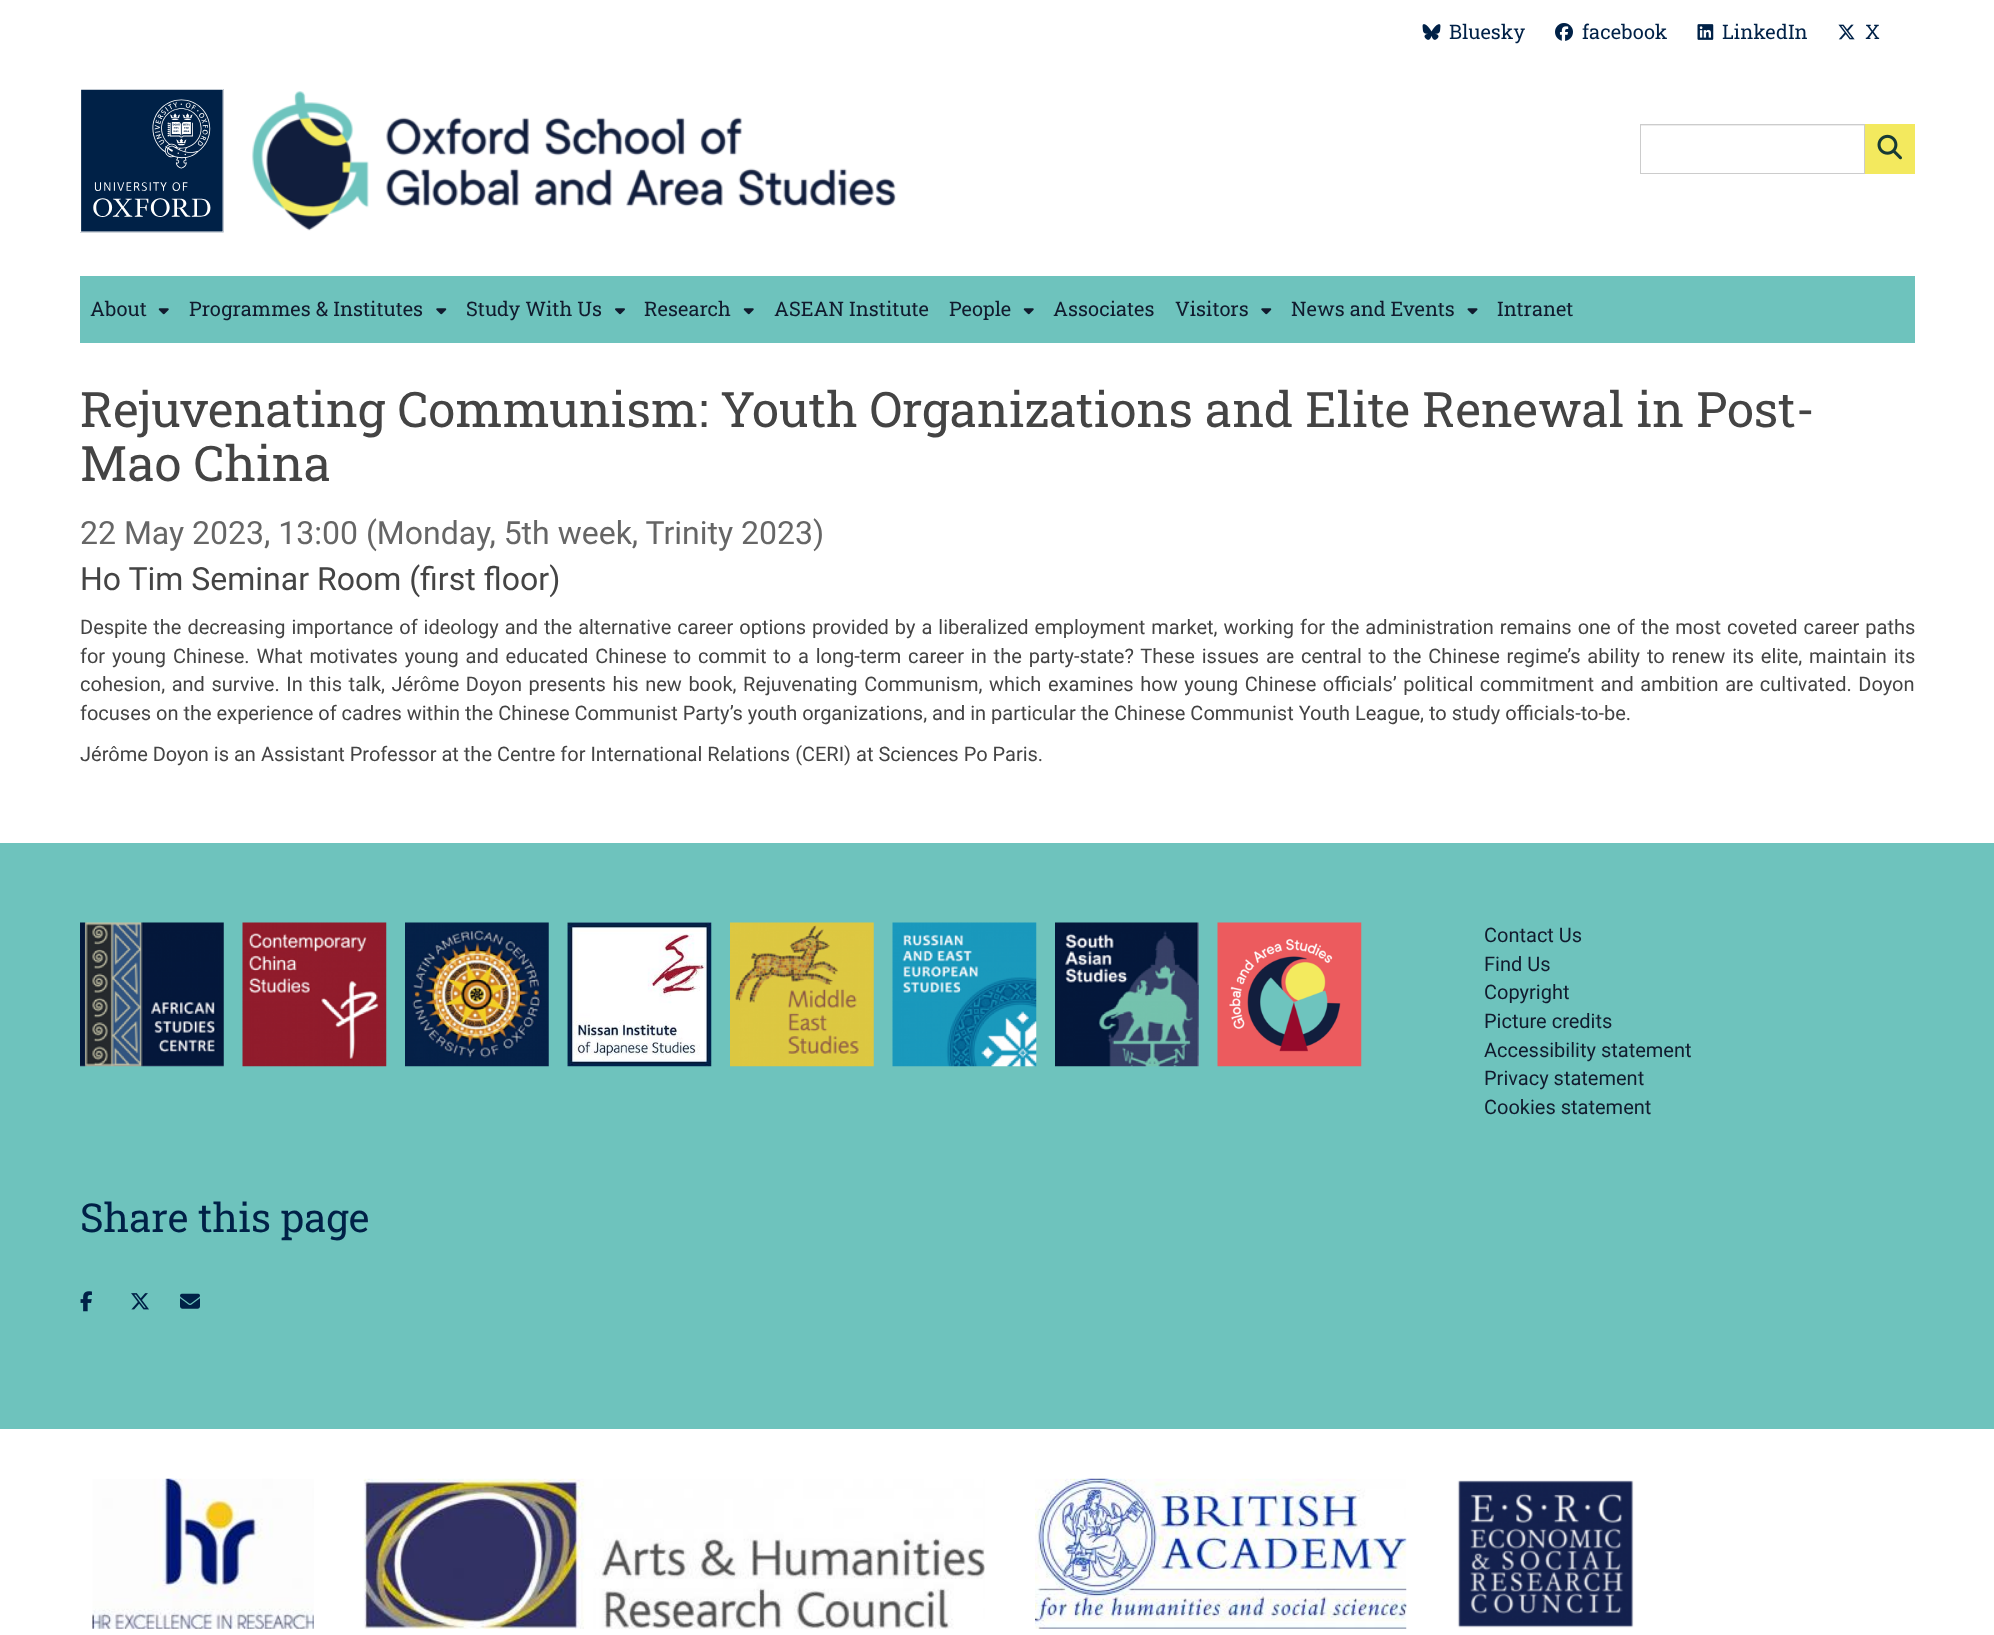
<svg xmlns="http://www.w3.org/2000/svg" width="1994" height="1635">
<rect width="100%" height="100%" fill="#fff"/>
<image x="1422" y="24" width="19" height="16" href="media/1.png"/>
<text x="1449" y="39" style="font-family:Roboto Slab;font-size:20px;fill:#002147">Bluesky</text>
<image x="1555" y="23" width="18" height="18" href="media/2.png"/>
<text x="1582" y="39" style="font-family:Roboto Slab;font-size:20px;fill:#002147">facebook</text>
<image x="1697" y="24" width="17" height="16" href="media/3.png"/>
<text x="1722" y="39" style="font-family:Roboto Slab;font-size:20px;fill:#002147">LinkedIn</text>
<image x="1838" y="24" width="17" height="16" href="media/4.png"/>
<text x="1865" y="39" style="font-family:Roboto Slab;font-size:20px;fill:#002147">X</text>
<image x="80" y="89" width="144" height="144" href="media/5.png"/>
<image x="251" y="91" width="645" height="140" href="media/6.png"/>
<rect x="1641" y="125" width="223" height="1" fill="#ececec"/>
<rect x="1640.5" y="124.5" width="224" height="49" fill="none" stroke="#ccc"/>
<rect x="1865" y="124" width="50" height="50" fill="#f3e95e"/>
<image x="1877" y="134" width="25" height="26" href="media/7.png"/>
<rect x="80" y="276" width="1835" height="67" fill="#6ec3bd"/>
<text x="90" y="316" style="font-family:Roboto Slab;font-size:20px;fill:#111b2e">About</text>
<image x="158" y="308" width="11" height="7" href="media/8.png"/>
<text x="189" y="316" style="font-family:Roboto Slab;font-size:20px;fill:#111b2e">Programmes &amp; Institutes</text>
<image x="436" y="308" width="11" height="7" href="media/9.png"/>
<text x="466" y="316" style="font-family:Roboto Slab;font-size:20px;fill:#111b2e">Study With Us</text>
<image x="615" y="308" width="10" height="7" href="media/10.png"/>
<text x="644" y="316" style="font-family:Roboto Slab;font-size:20px;fill:#111b2e">Research</text>
<image x="743" y="308" width="11" height="7" href="media/8.png"/>
<text x="774" y="316" style="font-family:Roboto Slab;font-size:20px;fill:#111b2e">ASEAN Institute</text>
<text x="949" y="316" style="font-family:Roboto Slab;font-size:20px;fill:#111b2e">People</text>
<image x="1023" y="308" width="11" height="7" href="media/8.png"/>
<text x="1053" y="316" style="font-family:Roboto Slab;font-size:20px;fill:#111b2e">Associates</text>
<text x="1175" y="316" style="font-family:Roboto Slab;font-size:20px;fill:#111b2e">Visitors</text>
<image x="1261" y="308" width="11" height="7" href="media/9.png"/>
<text x="1291" y="316" style="font-family:Roboto Slab;font-size:20px;fill:#111b2e">News and Events</text>
<image x="1467" y="308" width="11" height="7" href="media/11.png"/>
<text x="1497" y="316" style="font-family:Roboto Slab;font-size:20px;fill:#111b2e">Intranet</text>
<text x="80" y="427" style="font-family:Roboto Slab;font-size:49px;fill:#444">Rejuvenating Communism: Youth Organizations and Elite Renewal in Post-</text>
<text x="80" y="481" style="font-family:Roboto Slab;font-size:49px;fill:#444">Mao China</text>
<text x="80" y="544" style="font-family:Roboto;font-size:32px;fill:#666">22 May 2023, 13:00 (Monday, 5th week, Trinity 2023)</text>
<text x="80" y="590" style="font-family:Roboto;font-size:32px;fill:#444">Ho Tim Seminar Room (first floor)</text>
<text x="80" y="634" word-spacing="1.05" style="font-family:Roboto;font-size:20px;fill:#444">Despite the decreasing importance of ideology and the alternative career options provided by a liberalized employment market, working for the administration remains one of the most coveted career paths</text>
<text x="80" y="663" word-spacing="1.9" style="font-family:Roboto;font-size:20px;fill:#444">for young Chinese. What motivates young and educated Chinese to commit to a long-term career in the party-state? These issues are central to the Chinese regime’s ability to renew its elite, maintain its</text>
<text x="80" y="691" word-spacing="1.6" style="font-family:Roboto;font-size:20px;fill:#444">cohesion, and survive. In this talk, Jérôme Doyon presents his new book, Rejuvenating Communism, which examines how young Chinese officials’ political commitment and ambition are cultivated. Doyon</text>
<text x="80" y="720" style="font-family:Roboto;font-size:20px;fill:#444">focuses on the experience of cadres within the Chinese Communist Party’s youth organizations, and in particular the Chinese Communist Youth League, to study officials-to-be.</text>
<text x="80" y="761" style="font-family:Roboto;font-size:20px;fill:#444">Jérôme Doyon is an Assistant Professor at the Centre for International Relations (CERI) at Sciences Po Paris.</text>
<rect y="843" width="1994" height="586" fill="#6ec3bd"/>
<image x="80" y="922" width="144" height="145" href="media/12.png"/>
<image x="242" y="922" width="145" height="145" href="media/13.png"/>
<image x="405" y="922" width="144" height="145" href="media/14.png"/>
<image x="567" y="922" width="145" height="145" href="media/15.png"/>
<image x="730" y="922" width="144" height="145" href="media/16.png"/>
<image x="892" y="922" width="145" height="145" href="media/17.png"/>
<image x="1055" y="922" width="144" height="145" href="media/18.png"/>
<image x="1217" y="922" width="145" height="145" href="media/19.png"/>
<text x="1484" y="942" style="font-family:Roboto;font-size:20px;fill:#111b2e">Contact Us</text>
<text x="1484" y="971" style="font-family:Roboto;font-size:20px;fill:#111b2e">Find Us</text>
<text x="1484" y="999" style="font-family:Roboto;font-size:20px;fill:#111b2e">Copyright</text>
<text x="1484" y="1028" style="font-family:Roboto;font-size:20px;fill:#111b2e">Picture credits</text>
<text x="1484" y="1057" style="font-family:Roboto;font-size:20px;fill:#111b2e">Accessibility statement</text>
<text x="1484" y="1085" style="font-family:Roboto;font-size:20px;fill:#111b2e">Privacy statement</text>
<text x="1484" y="1114" style="font-family:Roboto;font-size:20px;fill:#111b2e">Cookies statement</text>
<text x="80" y="1232" style="font-family:Roboto Slab;font-size:40px;fill:#002147">Share this page</text>
<image x="80" y="1291" width="12" height="21" href="media/20.png"/>
<image x="131" y="1293" width="18" height="17" href="media/21.png"/>
<image x="180" y="1293" width="20" height="16" href="media/22.png"/>
<image x="92" y="1478" width="222" height="151" href="media/23.png"/>
<image x="363" y="1478" width="622" height="151" href="media/24.png"/>
<image x="1035" y="1478" width="372" height="151" href="media/25.png"/>
<image x="1457" y="1480" width="177" height="148" href="media/26.png"/>
</svg>
